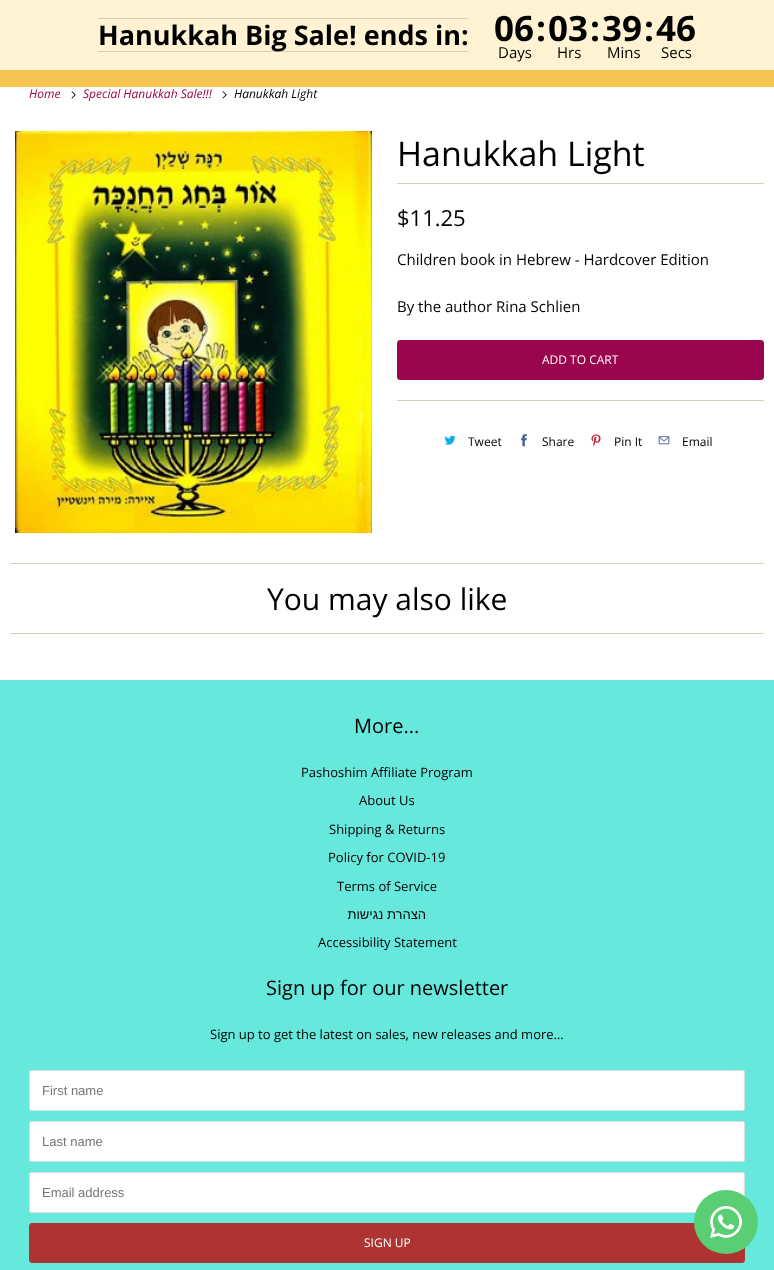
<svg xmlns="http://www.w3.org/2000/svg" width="774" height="1270">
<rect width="100%" height="100%" fill="#fff"/>
<rect width="774" height="70" fill="#fff3d4"/>
<rect y="70" width="774" height="17" fill="#f6c453"/>
<rect x="98" y="18" width="370" height="1" fill="#d5d1b8"/>
<rect x="98" y="51" width="370" height="1" fill="#d5d1b8"/>
<text x="98" y="45" style="font-family:Open Sans;font-size:27px;font-weight:bold;fill:#000">Hanukkah Big Sale! ends in:</text>
<text x="494" y="41" style="font-family:Open Sans;font-size:35px;font-weight:bold;fill:#000">06</text>
<text x="536" y="41" style="font-family:Open Sans;font-size:35px;font-weight:bold;fill:#000">:</text>
<text x="548" y="41" style="font-family:Open Sans;font-size:35px;font-weight:bold;fill:#000">03</text>
<text x="590" y="41" style="font-family:Open Sans;font-size:35px;font-weight:bold;fill:#000">:</text>
<text x="602" y="41" style="font-family:Open Sans;font-size:35px;font-weight:bold;fill:#000">39</text>
<text x="644" y="41" style="font-family:Open Sans;font-size:35px;font-weight:bold;fill:#000">:</text>
<text x="656" y="41" style="font-family:Open Sans;font-size:35px;font-weight:bold;fill:#000">46</text>
<text x="498" y="58" style="font-family:Open Sans;font-size:15px;fill:#000">Days</text>
<text x="557" y="58" style="font-family:Open Sans;font-size:15px;fill:#000">Hrs</text>
<text x="607" y="58" style="font-family:Open Sans;font-size:15px;fill:#000">Mins</text>
<text x="661" y="58" style="font-family:Open Sans;font-size:15px;fill:#000">Secs</text>
<text x="29" y="98" style="font-family:Open Sans;font-size:12px;font-style:italic;fill:#99064d">Home</text>
<image x="71" y="91" width="5" height="8" href="media/1.png"/>
<text x="83" y="98" style="font-family:Open Sans;font-size:12px;font-style:italic;fill:#99064d">Special Hanukkah Sale!!!</text>
<image x="222" y="91" width="5" height="8" href="media/1.png"/>
<text x="234" y="98" style="font-family:Open Sans;font-size:12px;font-style:italic;fill:#000">Hanukkah Light</text>
<image x="15" y="131" width="357" height="402" href="media/2.png"/>
<rect x="397" y="183" width="367" height="1" fill="#d5d1b8"/>
<text x="397" y="166" style="font-family:Open Sans;font-size:34px;fill:#000">Hanukkah Light</text>
<text x="397" y="226" style="font-family:Open Sans;font-size:22px;fill:#000">$11.25</text>
<text x="397" y="265" style="font-family:Open Sans;font-size:15px;fill:#000">Children book in Hebrew - Hardcover Edition</text>
<text x="397" y="312" style="font-family:Open Sans;font-size:15px;fill:#000">By the author Rina Schlien</text>
<rect x="397.5" y="340.5" width="366" height="39" rx="2.5" fill="#99064d" stroke="#99064d"/>
<text x="542" y="364" style="font-family:Open Sans;font-size:12px;fill:#fff">ADD TO CART</text>
<rect x="397" y="400" width="367" height="1" fill="#d5d1b8"/>
<image x="444" y="435" width="12" height="10" href="media/3.png"/>
<text x="468" y="446" style="font-family:Open Sans;font-size:12px;fill:#000">Tweet</text>
<image x="521" y="434" width="6" height="13" href="media/4.png"/>
<text x="542" y="446" style="font-family:Open Sans;font-size:12px;fill:#000">Share</text>
<image x="591" y="434" width="10" height="12" href="media/5.png"/>
<text x="614" y="446" style="font-family:Open Sans;font-size:12px;fill:#000">Pin It</text>
<image x="658" y="436" width="12" height="9" href="media/6.png"/>
<text x="682" y="446" style="font-family:Open Sans;font-size:12px;fill:#000">Email</text>
<rect x="10" y="563" width="754" height="1" fill="#d5d1b8"/>
<rect x="10" y="633" width="754" height="1" fill="#d5d1b8"/>
<text x="267" y="610" style="font-family:Open Sans;font-size:30px;fill:#000">You may also like</text>
<rect y="680" width="774" height="590" fill="#66e8dd"/>
<text x="354" y="733" style="font-family:Open Sans;font-size:20px;fill:#000">More...</text>
<text x="301" y="777" style="font-family:Open Sans;font-size:13px;fill:#080101">Pashoshim Affiliate Program</text>
<text x="359" y="805" style="font-family:Open Sans;font-size:13px;fill:#080101">About Us</text>
<text x="329" y="834" style="font-family:Open Sans;font-size:13px;fill:#080101">Shipping &amp; Returns</text>
<text x="328" y="862" style="font-family:Open Sans;font-size:13px;fill:#080101">Policy for COVID-19</text>
<text x="337" y="891" style="font-family:Open Sans;font-size:13px;fill:#080101">Terms of Service</text>
<text x="426" y="919" style="font-family:Liberation Sans;font-size:13px;direction:rtl;fill:#080101">הצהרת נגישות</text>
<text x="318" y="947" style="font-family:Open Sans;font-size:13px;fill:#080101">Accessibility Statement</text>
<text x="266" y="995" style="font-family:Open Sans;font-size:20px;fill:#000">Sign up for our newsletter</text>
<text x="210" y="1039" style="font-family:Open Sans;font-size:13px;fill:#000">Sign up to get the latest on sales, new releases and more…</text>
<rect x="29.5" y="1070.5" width="715" height="40" rx="1.5" fill="#fff" stroke="#dfdfdf"/>
<text x="42" y="1095" style="font-family:Liberation Sans;font-size:13px;fill:#757575">First name</text>
<rect x="29.5" y="1121.5" width="715" height="40" rx="1.5" fill="#fff" stroke="#dfdfdf"/>
<text x="42" y="1146" style="font-family:Liberation Sans;font-size:13px;fill:#757575">Last name</text>
<rect x="29.5" y="1172.5" width="715" height="40" rx="1.5" fill="#fff" stroke="#dfdfdf"/>
<text x="42" y="1197" style="font-family:Liberation Sans;font-size:13px;fill:#757575">Email address</text>
<rect x="29.5" y="1223.5" width="715" height="39" rx="2.5" fill="#ae3333" stroke="#ae3333"/>
<text x="364" y="1247" style="font-family:Open Sans;font-size:12px;fill:#fff">SIGN UP</text>
<circle cx="726" cy="1222" r="32" fill="#59ce72"/>
<image x="710" y="1206" width="32" height="32" href="media/7.png"/>
</svg>
